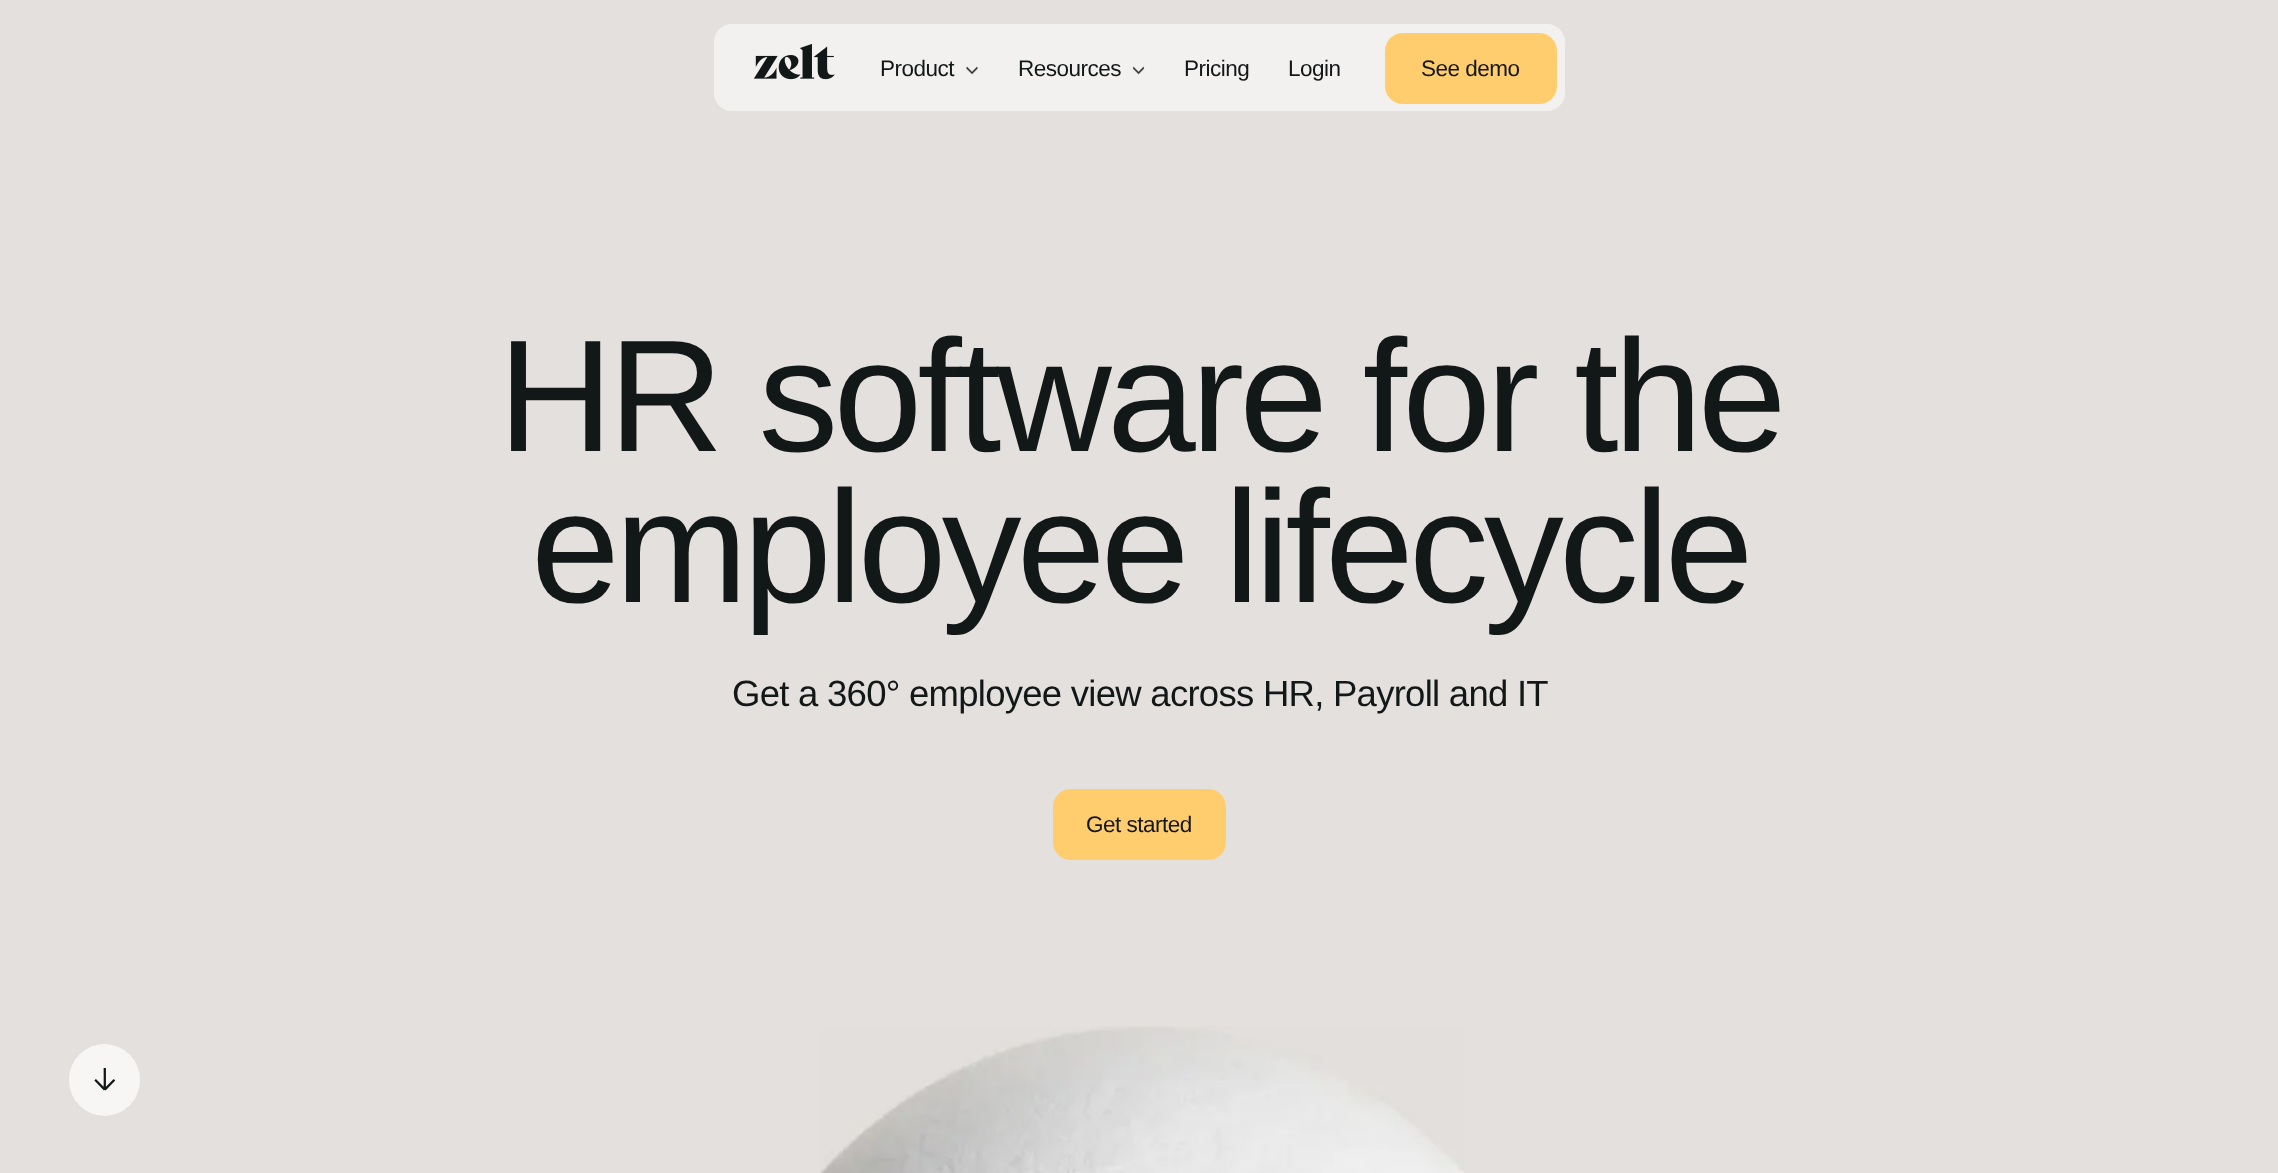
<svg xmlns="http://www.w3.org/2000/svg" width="2278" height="1173">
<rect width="100%" height="100%" fill="#e4e0dd"/>
<rect x="714" y="24" width="851" height="87" rx="18" fill="#f3f1ef"/>
<image x="753" y="44" width="82" height="36" href="media/1.png"/>
<text x="880" y="76" style="font-family:Liberation Sans;font-size:22.5px;letter-spacing:-0.5px;fill:#121718">Product</text>
<image x="966" y="66" width="12" height="9" href="media/2.png"/>
<text x="1018" y="76" style="font-family:Liberation Sans;font-size:22.5px;letter-spacing:-0.5px;fill:#121718">Resources</text>
<image x="1132" y="66" width="13" height="9" href="media/3.png"/>
<text x="1184" y="76" style="font-family:Liberation Sans;font-size:22.5px;letter-spacing:-0.5px;fill:#121718">Pricing</text>
<text x="1288" y="76" style="font-family:Liberation Sans;font-size:22.5px;letter-spacing:-0.5px;fill:#121718">Login</text>
<rect x="1385" y="33" width="172" height="71" rx="18" fill="#ffcd6d"/>
<text x="1421" y="76" style="font-family:Liberation Sans;font-size:22.5px;letter-spacing:-0.5px;fill:#121718">See demo</text>
<text x="498" y="451" style="font-family:Liberation Sans;font-size:159.5px;letter-spacing:-4.75px;fill:#121718">HR software for the</text>
<text x="531" y="602" style="font-family:Liberation Sans;font-size:159.5px;letter-spacing:-4.75px;fill:#121718">employee lifecycle</text>
<text x="732" y="706" style="font-family:Liberation Sans;font-size:36.5px;letter-spacing:-0.73px;fill:#121718">Get a 360° employee view across HR, Payroll and IT</text>
<rect x="1053" y="789" width="173" height="71" rx="18" fill="#ffcd6d"/>
<text x="1086" y="832" style="font-family:Liberation Sans;font-size:22.5px;letter-spacing:-0.5px;fill:#121718">Get started</text>
<rect x="69" y="1044" width="71" height="72" rx="35.5" fill="#f7f6f5"/>
<image x="94" y="1068" width="22" height="23" href="media/4.png"/>
<image x="820" y="1026" width="644" height="147" href="media/5.png"/>
</svg>
